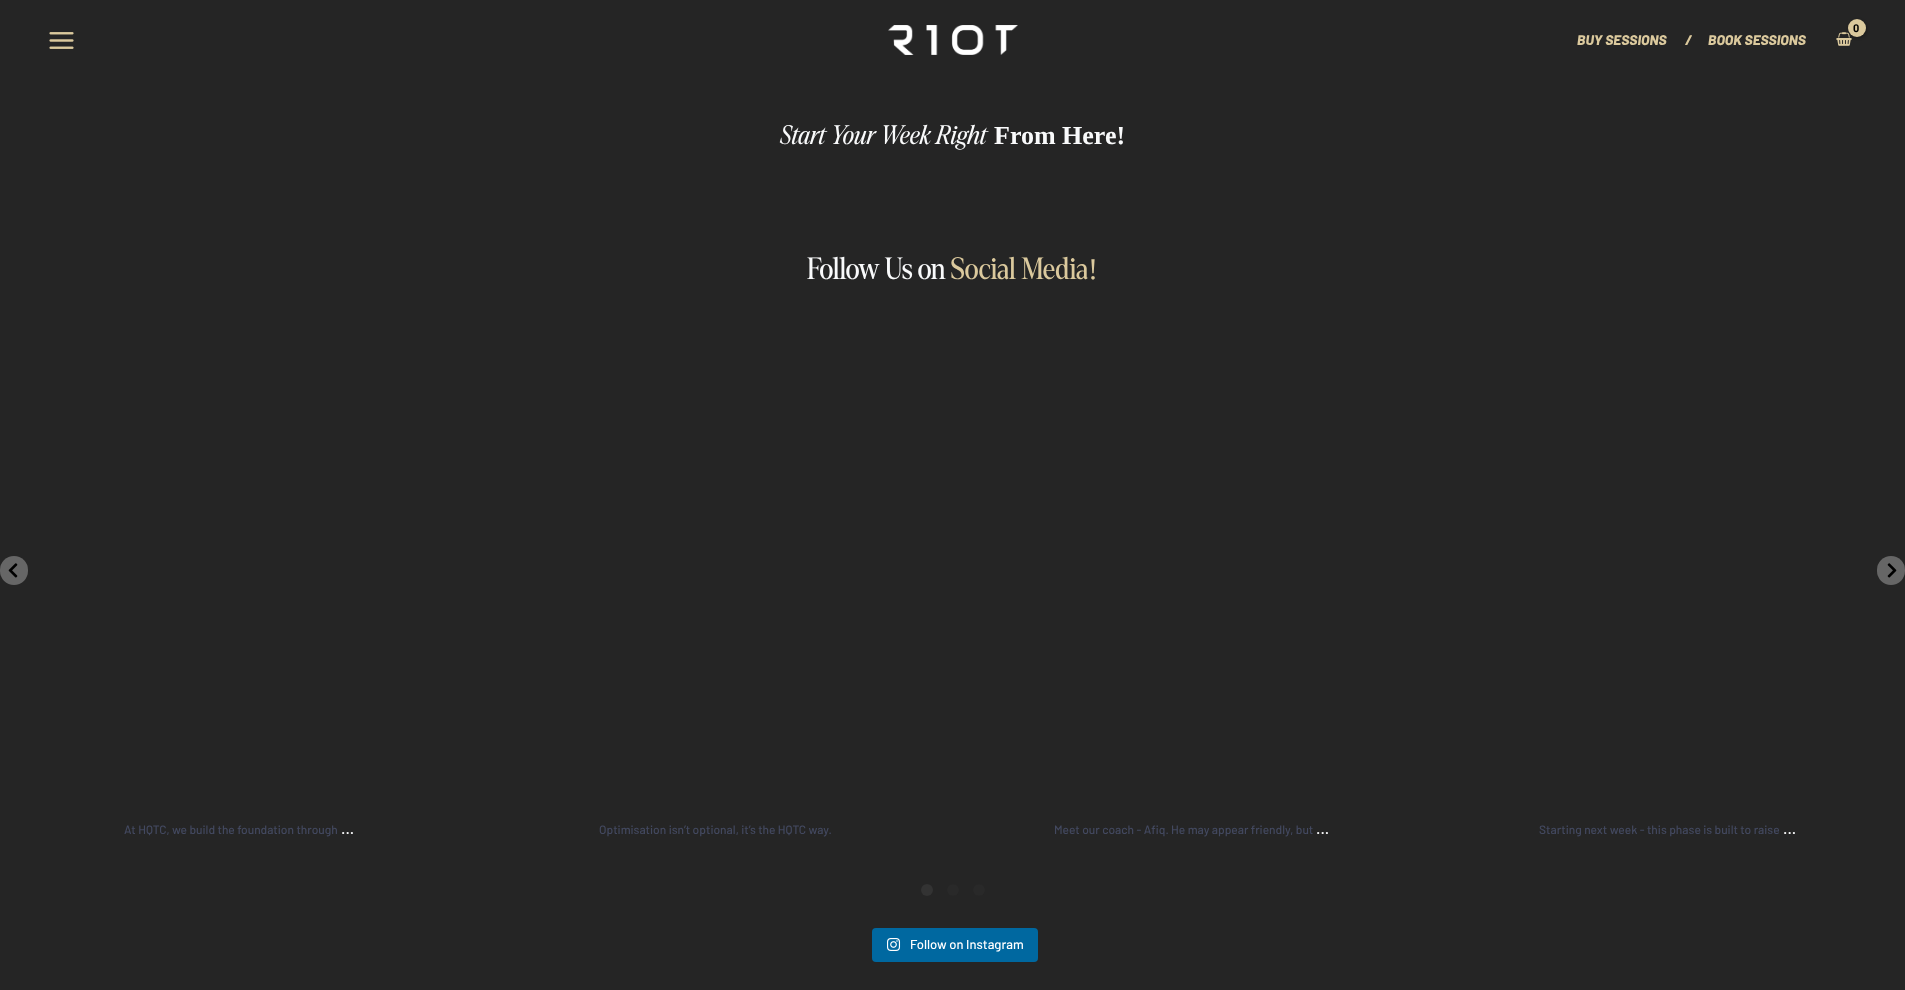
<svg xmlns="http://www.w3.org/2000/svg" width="1905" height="990">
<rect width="100%" height="100%" fill="#252525"/>
<image x="49" y="32" width="25" height="17" href="media/1.png"/>
<image x="888" y="25" width="130" height="30" href="media/2.png"/>
<image x="1836" y="32" width="16" height="14" href="media/3.png"/>
<rect x="1849" y="20" width="18" height="18" rx="9" fill="#0000004d" filter="blur(1.5px)"/>
<circle cx="1857" cy="28" r="9" fill="#dbc99d"/>
<text x="1853" y="32" style="font-family:Barlow;font-size:11px;font-weight:bold;fill:#000">0</text>
<text x="1577" y="45" style="font-family:Barlow;font-size:14px;font-weight:800;font-style:italic;fill:#dbc99d">BUY SESSIONS</text>
<text x="1685" y="45" style="font-family:Barlow;font-size:14px;font-weight:800;font-style:italic;fill:#dbc99d">/</text>
<text x="1708" y="45" style="font-family:Barlow;font-size:14px;font-weight:800;font-style:italic;fill:#dbc99d">BOOK SESSIONS</text>
<text x="780" y="144" style="font-family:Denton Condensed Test;font-size:26px;font-style:italic;fill:#f9fafb">Start Your Week Right</text>
<text x="994" y="144" style="font-family:Liberation Serif;font-size:26px;font-weight:bold;fill:#f9fafb">From Here!</text>
<text x="807" y="279" style="font-family:Denton Condensed Test;font-size:30px;fill:#f9fafb">Follow Us on</text>
<text x="951" y="279" style="font-family:Denton Condensed Test;font-size:30px;fill:#dbc99d">Social Media</text>
<text x="1088" y="279" style="font-family:Liberation Serif;font-size:30px;fill:#dbc99d">!</text>
<rect y="556" width="28" height="29" rx="14" fill="#666"/>
<image x="8" y="563" width="10" height="15" href="media/4.png"/>
<rect x="1877" y="556" width="28" height="29" rx="14" fill="#666"/>
<image x="1887" y="563" width="10" height="15" href="media/5.png"/>
<text x="124" y="834" style="font-family:Barlow;font-size:12px;font-weight:500;fill:#434960">At HQTC, we build the foundation through</text>
<text x="341" y="834" style="font-family:Barlow;font-size:16px;font-weight:500;fill:#f9fafb">...</text>
<text x="599" y="834" style="font-family:Barlow;font-size:12px;font-weight:500;fill:#434960">Optimisation isn’t optional, it’s the HQTC way.</text>
<text x="1054" y="834" style="font-family:Barlow;font-size:12px;font-weight:500;fill:#434960">Meet our coach - Afiq. He may appear friendly, but</text>
<text x="1316" y="834" style="font-family:Barlow;font-size:16px;font-weight:500;fill:#f9fafb">...</text>
<text x="1539" y="834" style="font-family:Barlow;font-size:12px;font-weight:500;fill:#434960">Starting next week - this phase is built to raise</text>
<text x="1783" y="834" style="font-family:Barlow;font-size:16px;font-weight:500;fill:#f9fafb">...</text>
<circle cx="927" cy="890" r="6" fill="#333"/>
<circle cx="953" cy="890" r="6" fill="#292929"/>
<circle cx="979" cy="890" r="6" fill="#292929"/>
<rect x="872" y="928" width="166" height="34" rx="4" fill="#0068a0"/>
<image x="887" y="938" width="14" height="13" href="media/6.png"/>
<text x="910" y="949" style="font-family:Barlow;font-size:13px;font-weight:500;fill:#fff">Follow on Instagram</text>
</svg>
